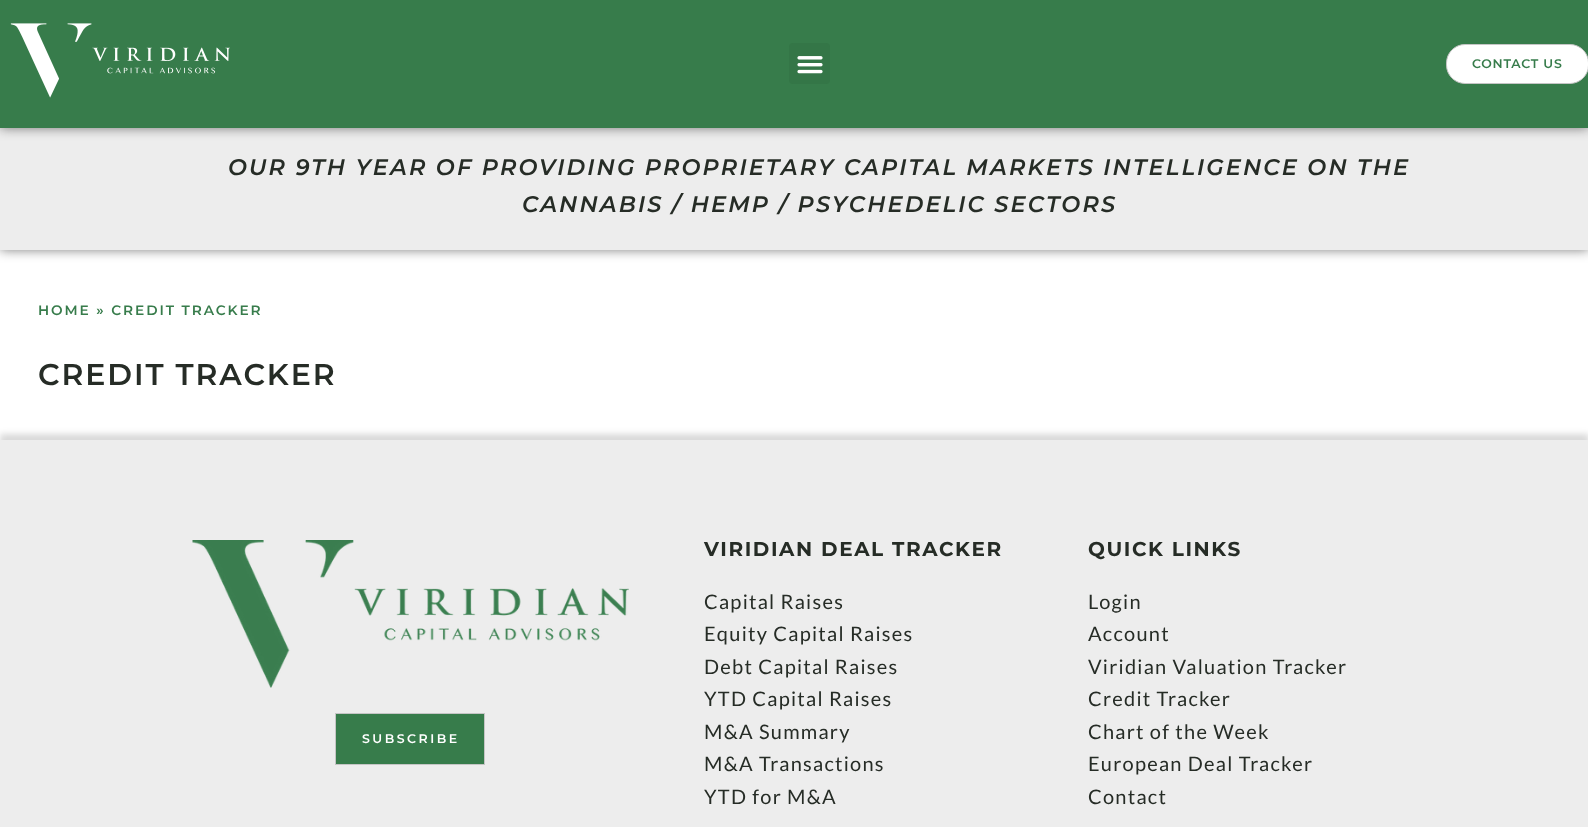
<svg xmlns="http://www.w3.org/2000/svg" width="1588" height="827">
<rect width="100%" height="100%" fill="#fff"/>
<rect y="128" width="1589" height="122" fill="#00000080" filter="blur(6px)"/>
<rect y="128" width="1588" height="122" fill="#ededed"/>
<rect width="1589" height="128" fill="#00000080" filter="blur(6px)"/>
<rect width="1588" height="128" fill="#377c4b"/>
<image x="10" y="23" width="220" height="75" href="media/1.png"/>
<rect x="789" y="43" width="41" height="41" rx="4" fill="#347647"/>
<image x="797" y="56" width="26" height="18" href="media/2.png"/>
<rect x="1446.5" y="44.5" width="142" height="39" rx="18.5" fill="#fff" stroke="#c5c5c5"/>
<text x="1472" y="68" style="font-family:Montserrat;font-size:12.5px;font-weight:600;letter-spacing:0.75px;fill:#377c4b">CONTACT US</text>
<text x="228" y="175" style="font-family:Montserrat;font-size:22.5px;font-weight:600;font-style:italic;letter-spacing:2.12px;fill:#262c26">OUR 9TH YEAR OF PROVIDING PROPRIETARY CAPITAL MARKETS INTELLIGENCE ON THE</text>
<text x="522" y="212" style="font-family:Montserrat;font-size:22.5px;font-weight:600;font-style:italic;letter-spacing:2.12px;fill:#262c26">CANNABIS / HEMP / PSYCHEDELIC SECTORS</text>
<text x="38" y="315" style="font-family:Montserrat;font-size:13.75px;font-weight:600;letter-spacing:1.9px;fill:#377c4b">HOME » CREDIT TRACKER</text>
<text x="38" y="385" style="font-family:Montserrat;font-size:30px;font-weight:600;letter-spacing:1.9px;fill:#262c26">CREDIT TRACKER</text>
<rect y="434" width="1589" height="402" fill="#00000026" filter="blur(3px)"/>
<rect y="440" width="1588" height="387" fill="#ededed"/>
<image x="192" y="540" width="437" height="148" href="media/3.png"/>
<rect x="335.5" y="713.5" width="149" height="51" fill="#377c4b" stroke="#c5c5c5"/>
<text x="362" y="743" style="font-family:Montserrat;font-size:12.5px;font-weight:600;letter-spacing:2.5px;fill:#fff">SUBSCRIBE</text>
<text x="704" y="556" style="font-family:Montserrat;font-size:20px;font-weight:bold;letter-spacing:1.6px;fill:#262c26">VIRIDIAN DEAL TRACKER</text>
<text x="704" y="609" style="font-family:Lato;font-size:20px;letter-spacing:1.25px;fill:#262c26">Capital Raises</text>
<text x="704" y="641" style="font-family:Lato;font-size:20px;letter-spacing:1.25px;fill:#262c26">Equity Capital Raises</text>
<text x="704" y="674" style="font-family:Lato;font-size:20px;letter-spacing:1.25px;fill:#262c26">Debt Capital Raises</text>
<text x="704" y="706" style="font-family:Lato;font-size:20px;letter-spacing:1.25px;fill:#262c26">YTD Capital Raises</text>
<text x="704" y="739" style="font-family:Lato;font-size:20px;letter-spacing:1.25px;fill:#262c26">M&amp;A Summary</text>
<text x="704" y="771" style="font-family:Lato;font-size:20px;letter-spacing:1.25px;fill:#262c26">M&amp;A Transactions</text>
<text x="704" y="804" style="font-family:Lato;font-size:20px;letter-spacing:1.25px;fill:#262c26">YTD for M&amp;A</text>
<text x="1088" y="556" style="font-family:Montserrat;font-size:20px;font-weight:bold;letter-spacing:1.6px;fill:#262c26">QUICK LINKS</text>
<text x="1088" y="609" style="font-family:Lato;font-size:20px;letter-spacing:1.25px;fill:#262c26">Login</text>
<text x="1088" y="641" style="font-family:Lato;font-size:20px;letter-spacing:1.25px;fill:#262c26">Account</text>
<text x="1088" y="674" style="font-family:Lato;font-size:20px;letter-spacing:1.25px;fill:#262c26">Viridian Valuation Tracker</text>
<text x="1088" y="706" style="font-family:Lato;font-size:20px;letter-spacing:1.25px;fill:#262c26">Credit Tracker</text>
<text x="1088" y="739" style="font-family:Lato;font-size:20px;letter-spacing:1.25px;fill:#262c26">Chart of the Week</text>
<text x="1088" y="771" style="font-family:Lato;font-size:20px;letter-spacing:1.25px;fill:#262c26">European Deal Tracker</text>
<text x="1088" y="804" style="font-family:Lato;font-size:20px;letter-spacing:1.25px;fill:#262c26">Contact</text>
</svg>
